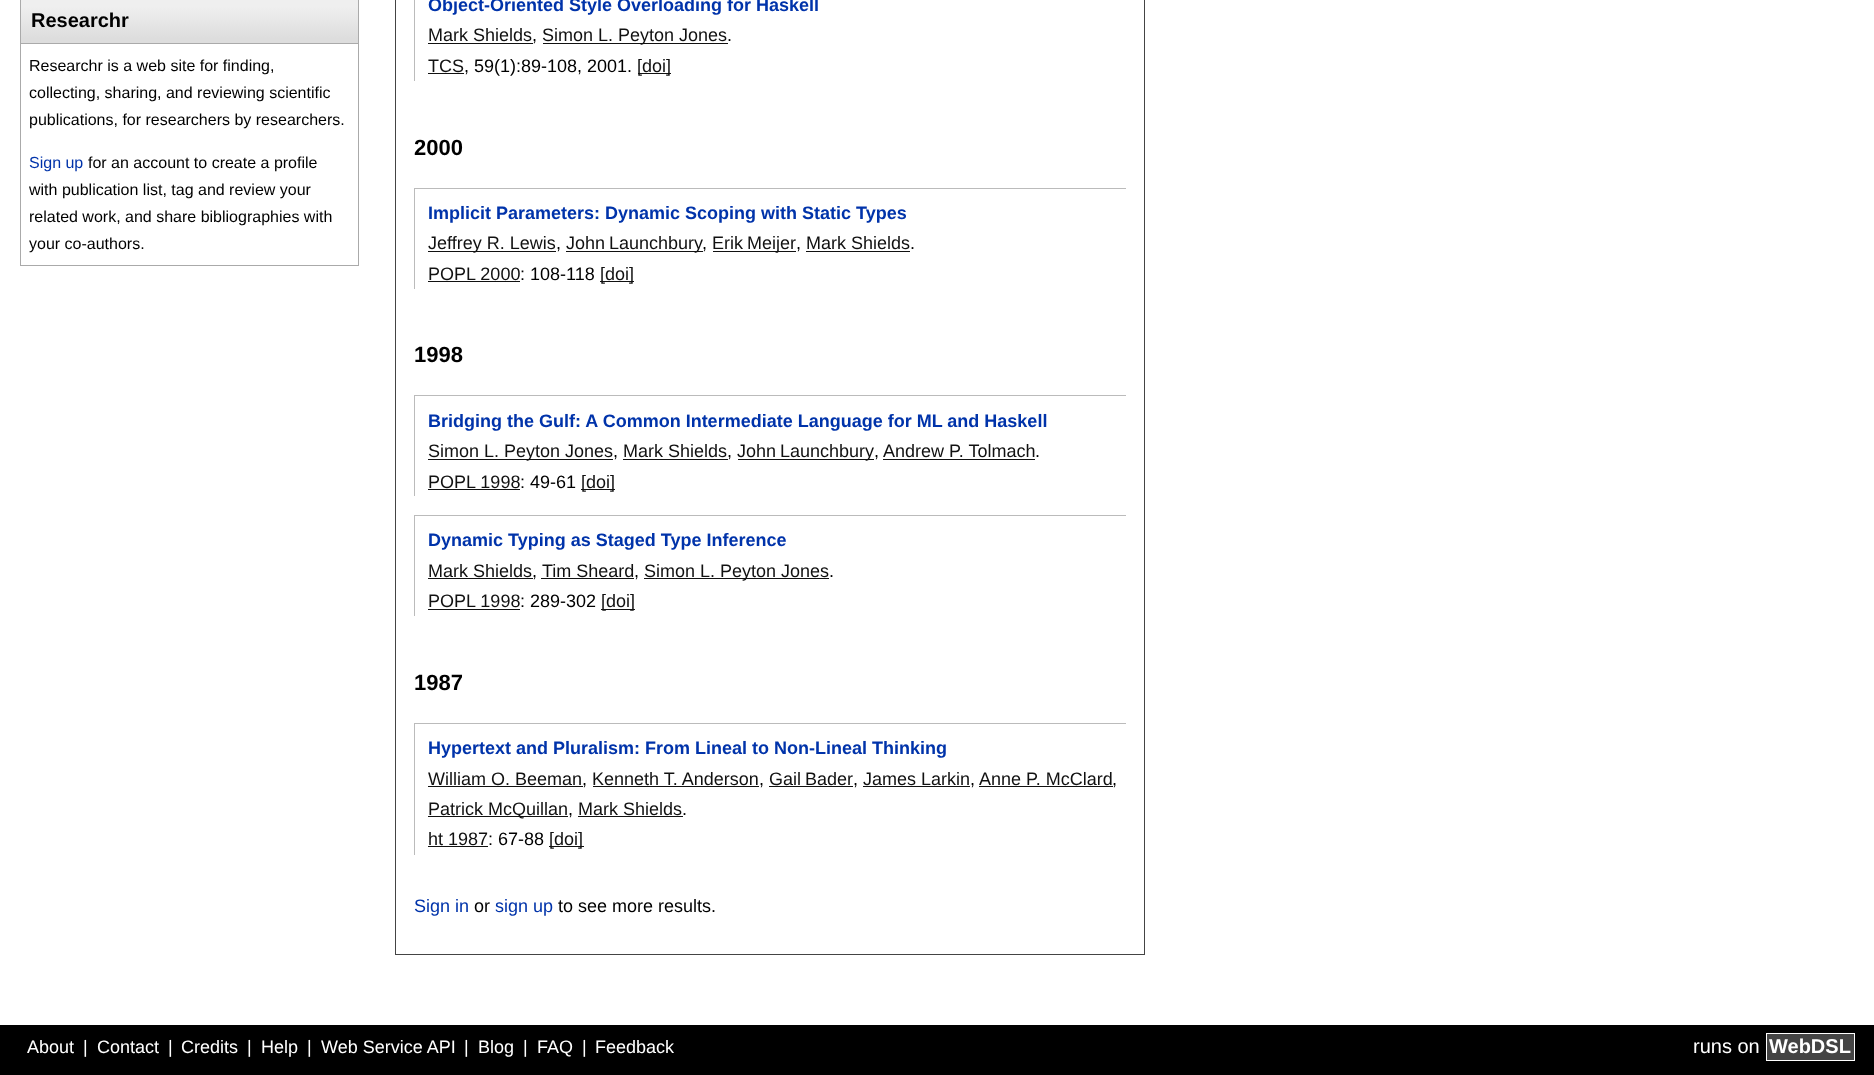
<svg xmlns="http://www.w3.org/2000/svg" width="1874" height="1075">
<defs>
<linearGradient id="g1" gradientUnits="userSpaceOnUse" x1="21" y1="43" x2="21" y2="-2.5"><stop offset="0.1" stop-color="#ddd"/><stop offset="0.8" stop-color="#efefef"/></linearGradient>
</defs>
<rect width="100%" height="100%" fill="#fff"/>
<rect x="20.5" y="-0.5" width="338" height="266" fill="none" stroke="#aaa"/>
<rect x="21" width="337" height="43" fill="url(#g1)"/>
<rect x="21" y="43" width="337" height="1" fill="#aaa"/>
<text x="31" y="27" style="font-family:Liberation Sans;font-size:20px;font-weight:bold;fill:#000">Researchr</text>
<text x="29" y="71" style="font-family:Liberation Sans;font-size:16px;fill:#000">Researchr is a web site for finding,</text>
<text x="29" y="98" style="font-family:Liberation Sans;font-size:16px;fill:#000">collecting, sharing, and reviewing scientific</text>
<text x="29" y="125" style="font-family:Liberation Sans;font-size:16px;fill:#000">publications, for researchers by researchers.</text>
<text x="29" y="168" style="font-family:Liberation Sans;font-size:16px;fill:#03a">Sign up</text>
<text x="88" y="168" style="font-family:Liberation Sans;font-size:16px;fill:#000">for an account to create a profile</text>
<text x="29" y="195" style="font-family:Liberation Sans;font-size:16px;fill:#000">with publication list, tag and review your</text>
<text x="29" y="222" style="font-family:Liberation Sans;font-size:16px;fill:#000">related work, and share bibliographies with</text>
<text x="29" y="249" style="font-family:Liberation Sans;font-size:16px;fill:#000">your co-authors.</text>
<rect x="395.5" y="-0.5" width="749" height="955" fill="none" stroke="#444"/>
<rect x="414" width="1" height="81" fill="#bbb"/>
<text x="428" y="11" style="font-family:Liberation Sans;font-size:18px;font-weight:bold;fill:#03a">Object-Oriented Style Overloading for Haskell</text>
<text x="428" y="41" style="font-family:Liberation Sans;font-size:18px;fill:#111">Mark Shields</text>
<text x="532" y="41" style="font-family:Liberation Sans;font-size:18px;fill:#000">,</text>
<rect x="428" y="43" width="105" height="1" fill="#111"/>
<rect x="543" y="43" width="185" height="1" fill="#111"/>
<text x="542" y="41" style="font-family:Liberation Sans;font-size:18px;fill:#111">Simon L. Peyton Jones</text>
<text x="727" y="41" style="font-family:Liberation Sans;font-size:18px;fill:#000">.</text>
<text x="428" y="72" style="font-family:Liberation Sans;font-size:18px;fill:#111">TCS</text>
<text x="464" y="72" style="font-family:Liberation Sans;font-size:18px;fill:#000">, 59(1):89-108, 2001.</text>
<rect x="428" y="73" width="36" height="1" fill="#111"/>
<rect x="638" y="73" width="33" height="1" fill="#111"/>
<text x="637" y="72" style="font-family:Liberation Sans;font-size:18px;fill:#111">[doi]</text>
<text x="414" y="155" style="font-family:Liberation Sans;font-size:22px;font-weight:bold;fill:#000">2000</text>
<rect x="414" y="188" width="712" height="1" fill="#bbb"/>
<rect x="414" y="188" width="1" height="101" fill="#bbb"/>
<text x="428" y="219" style="font-family:Liberation Sans;font-size:18px;font-weight:bold;fill:#03a">Implicit Parameters: Dynamic Scoping with Static Types</text>
<rect x="428" y="251" width="128" height="1" fill="#111"/>
<text x="428" y="249" style="font-family:Liberation Sans;font-size:18px;fill:#111">Jeffrey R. Lewis</text>
<text x="556" y="249" style="font-family:Liberation Sans;font-size:18px;fill:#000">,</text>
<rect x="566" y="251" width="137" height="1" fill="#111"/>
<text x="566" y="249" word-spacing="-1" style="font-family:Liberation Sans;font-size:18px;fill:#111">John Launchbury</text>
<text x="702" y="249" style="font-family:Liberation Sans;font-size:18px;fill:#000">,</text>
<rect x="713" y="251" width="83" height="1" fill="#111"/>
<text x="712" y="249" word-spacing="-1" style="font-family:Liberation Sans;font-size:18px;fill:#111">Erik Meijer</text>
<text x="796" y="249" style="font-family:Liberation Sans;font-size:18px;fill:#000">,</text>
<rect x="806" y="251" width="104" height="1" fill="#111"/>
<text x="806" y="249" style="font-family:Liberation Sans;font-size:18px;fill:#111">Mark Shields</text>
<text x="910" y="249" style="font-family:Liberation Sans;font-size:18px;fill:#000">.</text>
<text x="428" y="280" style="font-family:Liberation Sans;font-size:18px;fill:#111">POPL 2000</text>
<rect x="428" y="281" width="92" height="1" fill="#111"/>
<text x="520" y="280" style="font-family:Liberation Sans;font-size:18px;fill:#000">: 108-118</text>
<rect x="600" y="281" width="34" height="1" fill="#111"/>
<text x="600" y="280" style="font-family:Liberation Sans;font-size:18px;fill:#111">[doi]</text>
<text x="414" y="362" style="font-family:Liberation Sans;font-size:22px;font-weight:bold;fill:#000">1998</text>
<rect x="414" y="395" width="712" height="1" fill="#bbb"/>
<rect x="414" y="395" width="1" height="101" fill="#bbb"/>
<text x="428" y="427" style="font-family:Liberation Sans;font-size:18px;font-weight:bold;fill:#03a">Bridging the Gulf: A Common Intermediate Language for ML and Haskell</text>
<rect x="428" y="459" width="185" height="1" fill="#111"/>
<text x="428" y="457" style="font-family:Liberation Sans;font-size:18px;fill:#111">Simon L. Peyton Jones</text>
<text x="613" y="457" style="font-family:Liberation Sans;font-size:18px;fill:#000">,</text>
<text x="623" y="457" style="font-family:Liberation Sans;font-size:18px;fill:#111">Mark Shields</text>
<text x="727" y="457" style="font-family:Liberation Sans;font-size:18px;fill:#000">,</text>
<rect x="623" y="459" width="105" height="1" fill="#111"/>
<rect x="738" y="459" width="136" height="1" fill="#111"/>
<text x="737" y="457" word-spacing="-1" style="font-family:Liberation Sans;font-size:18px;fill:#111">John Launchbury</text>
<text x="874" y="457" style="font-family:Liberation Sans;font-size:18px;fill:#000">,</text>
<rect x="883" y="459" width="152" height="1" fill="#111"/>
<text x="883" y="457" style="font-family:Liberation Sans;font-size:18px;fill:#111">Andrew P. Tolmach</text>
<text x="1035" y="457" style="font-family:Liberation Sans;font-size:18px;fill:#000">.</text>
<text x="428" y="488" style="font-family:Liberation Sans;font-size:18px;fill:#111">POPL 1998</text>
<rect x="428" y="489" width="92" height="1" fill="#111"/>
<text x="520" y="488" style="font-family:Liberation Sans;font-size:18px;fill:#000">: 49-61</text>
<rect x="581" y="489" width="34" height="1" fill="#111"/>
<text x="581" y="488" style="font-family:Liberation Sans;font-size:18px;fill:#111">[doi]</text>
<rect x="414" y="515" width="712" height="1" fill="#bbb"/>
<rect x="414" y="515" width="1" height="101" fill="#bbb"/>
<text x="428" y="546" style="font-family:Liberation Sans;font-size:18px;font-weight:bold;fill:#03a">Dynamic Typing as Staged Type Inference</text>
<text x="428" y="577" style="font-family:Liberation Sans;font-size:18px;fill:#111">Mark Shields</text>
<text x="532" y="577" style="font-family:Liberation Sans;font-size:18px;fill:#000">,</text>
<rect x="428" y="578" width="105" height="1" fill="#111"/>
<text x="542" y="577" style="font-family:Liberation Sans;font-size:18px;fill:#111">Tim Sheard</text>
<text x="634" y="577" style="font-family:Liberation Sans;font-size:18px;fill:#000">,</text>
<rect x="541" y="578" width="93" height="1" fill="#111"/>
<rect x="644" y="578" width="185" height="1" fill="#111"/>
<text x="644" y="577" style="font-family:Liberation Sans;font-size:18px;fill:#111">Simon L. Peyton Jones</text>
<text x="829" y="577" style="font-family:Liberation Sans;font-size:18px;fill:#000">.</text>
<text x="428" y="607" style="font-family:Liberation Sans;font-size:18px;fill:#111">POPL 1998</text>
<rect x="428" y="609" width="92" height="1" fill="#111"/>
<text x="520" y="607" style="font-family:Liberation Sans;font-size:18px;fill:#000">: 289-302</text>
<rect x="601" y="609" width="34" height="1" fill="#111"/>
<text x="601" y="607" style="font-family:Liberation Sans;font-size:18px;fill:#111">[doi]</text>
<text x="414" y="690" style="font-family:Liberation Sans;font-size:22px;font-weight:bold;fill:#000">1987</text>
<rect x="414" y="723" width="712" height="1" fill="#bbb"/>
<rect x="414" y="723" width="1" height="132" fill="#bbb"/>
<text x="428" y="754" style="font-family:Liberation Sans;font-size:18px;font-weight:bold;fill:#03a">Hypertext and Pluralism: From Lineal to Non-Lineal Thinking</text>
<text x="428" y="785" style="font-family:Liberation Sans;font-size:18px;fill:#111">William O. Beeman</text>
<text x="582" y="785" style="font-family:Liberation Sans;font-size:18px;fill:#000">,</text>
<rect x="428" y="786" width="155" height="1" fill="#111"/>
<text x="592" y="785" style="font-family:Liberation Sans;font-size:18px;fill:#111">Kenneth T. Anderson</text>
<text x="759" y="785" style="font-family:Liberation Sans;font-size:18px;fill:#000">,</text>
<rect x="593" y="786" width="166" height="1" fill="#111"/>
<text x="769" y="785" word-spacing="-1" style="font-family:Liberation Sans;font-size:18px;fill:#111">Gail Bader</text>
<text x="853" y="785" style="font-family:Liberation Sans;font-size:18px;fill:#000">,</text>
<rect x="769" y="786" width="84" height="1" fill="#111"/>
<text x="863" y="785" style="font-family:Liberation Sans;font-size:18px;fill:#111">James Larkin</text>
<text x="970" y="785" style="font-family:Liberation Sans;font-size:18px;fill:#000">,</text>
<rect x="863" y="786" width="107" height="1" fill="#111"/>
<text x="979" y="785" style="font-family:Liberation Sans;font-size:18px;fill:#111">Anne P. McClard</text>
<text x="1112" y="785" style="font-family:Liberation Sans;font-size:18px;fill:#000">,</text>
<rect x="979" y="786" width="134" height="1" fill="#111"/>
<rect x="428" y="816" width="140" height="1" fill="#111"/>
<text x="428" y="815" style="font-family:Liberation Sans;font-size:18px;fill:#111">Patrick McQuillan</text>
<text x="568" y="815" style="font-family:Liberation Sans;font-size:18px;fill:#000">,</text>
<rect x="578" y="816" width="105" height="1" fill="#111"/>
<text x="578" y="815" style="font-family:Liberation Sans;font-size:18px;fill:#111">Mark Shields</text>
<text x="682" y="815" style="font-family:Liberation Sans;font-size:18px;fill:#000">.</text>
<text x="428" y="845" style="font-family:Liberation Sans;font-size:18px;fill:#111">ht 1987</text>
<rect x="428" y="846" width="60" height="1" fill="#111"/>
<text x="488" y="845" style="font-family:Liberation Sans;font-size:18px;fill:#000">: 67-88</text>
<rect x="549" y="846" width="35" height="1" fill="#111"/>
<text x="549" y="845" style="font-family:Liberation Sans;font-size:18px;fill:#111">[doi]</text>
<text x="414" y="912" style="font-family:Liberation Sans;font-size:18px;fill:#03a">Sign in</text>
<text x="474" y="912" style="font-family:Liberation Sans;font-size:18px;fill:#000">or</text>
<text x="495" y="912" style="font-family:Liberation Sans;font-size:18px;fill:#03a">sign up</text>
<text x="558" y="912" style="font-family:Liberation Sans;font-size:18px;fill:#000">to see more results.</text>
<rect y="1025" width="1874" height="50" fill="#000"/>
<text x="27" y="1053" style="font-family:Liberation Sans;font-size:18px;fill:#fff">About</text>
<text x="83" y="1053" style="font-family:Liberation Sans;font-size:18px;fill:#fff">|</text>
<text x="97" y="1053" style="font-family:Liberation Sans;font-size:18px;fill:#fff">Contact</text>
<text x="168" y="1053" style="font-family:Liberation Sans;font-size:18px;fill:#fff">|</text>
<text x="181" y="1053" style="font-family:Liberation Sans;font-size:18px;fill:#fff">Credits</text>
<text x="247" y="1053" style="font-family:Liberation Sans;font-size:18px;fill:#fff">|</text>
<text x="261" y="1053" style="font-family:Liberation Sans;font-size:18px;fill:#fff">Help</text>
<text x="307" y="1053" style="font-family:Liberation Sans;font-size:18px;fill:#fff">|</text>
<text x="321" y="1053" style="font-family:Liberation Sans;font-size:18px;fill:#fff">Web Service API</text>
<text x="464" y="1053" style="font-family:Liberation Sans;font-size:18px;fill:#fff">|</text>
<text x="478" y="1053" style="font-family:Liberation Sans;font-size:18px;fill:#fff">Blog</text>
<text x="523" y="1053" style="font-family:Liberation Sans;font-size:18px;fill:#fff">|</text>
<text x="537" y="1053" style="font-family:Liberation Sans;font-size:18px;fill:#fff">FAQ</text>
<text x="582" y="1053" style="font-family:Liberation Sans;font-size:18px;fill:#fff">|</text>
<text x="595" y="1053" style="font-family:Liberation Sans;font-size:18px;fill:#fff">Feedback</text>
<text x="1693" y="1053" style="font-family:Liberation Sans;font-size:20px;fill:#fff">runs on</text>
<rect x="1767" y="1034" width="87" height="26" fill="#444"/>
<text x="1769" y="1053" style="font-family:Liberation Sans;font-size:20px;font-weight:bold;fill:#fff">WebDSL</text>
<rect x="1766" y="1033" width="89" height="1" fill="#fff"/>
<rect x="1766" y="1060" width="45" height="1" fill="#fff"/>
<rect x="1766" y="1033" width="1" height="28" fill="#fff"/>
<rect x="1854" y="1033" width="1" height="28" fill="#fff"/>
<rect x="1811" y="1060" width="44" height="1" fill="#fff"/>
</svg>
